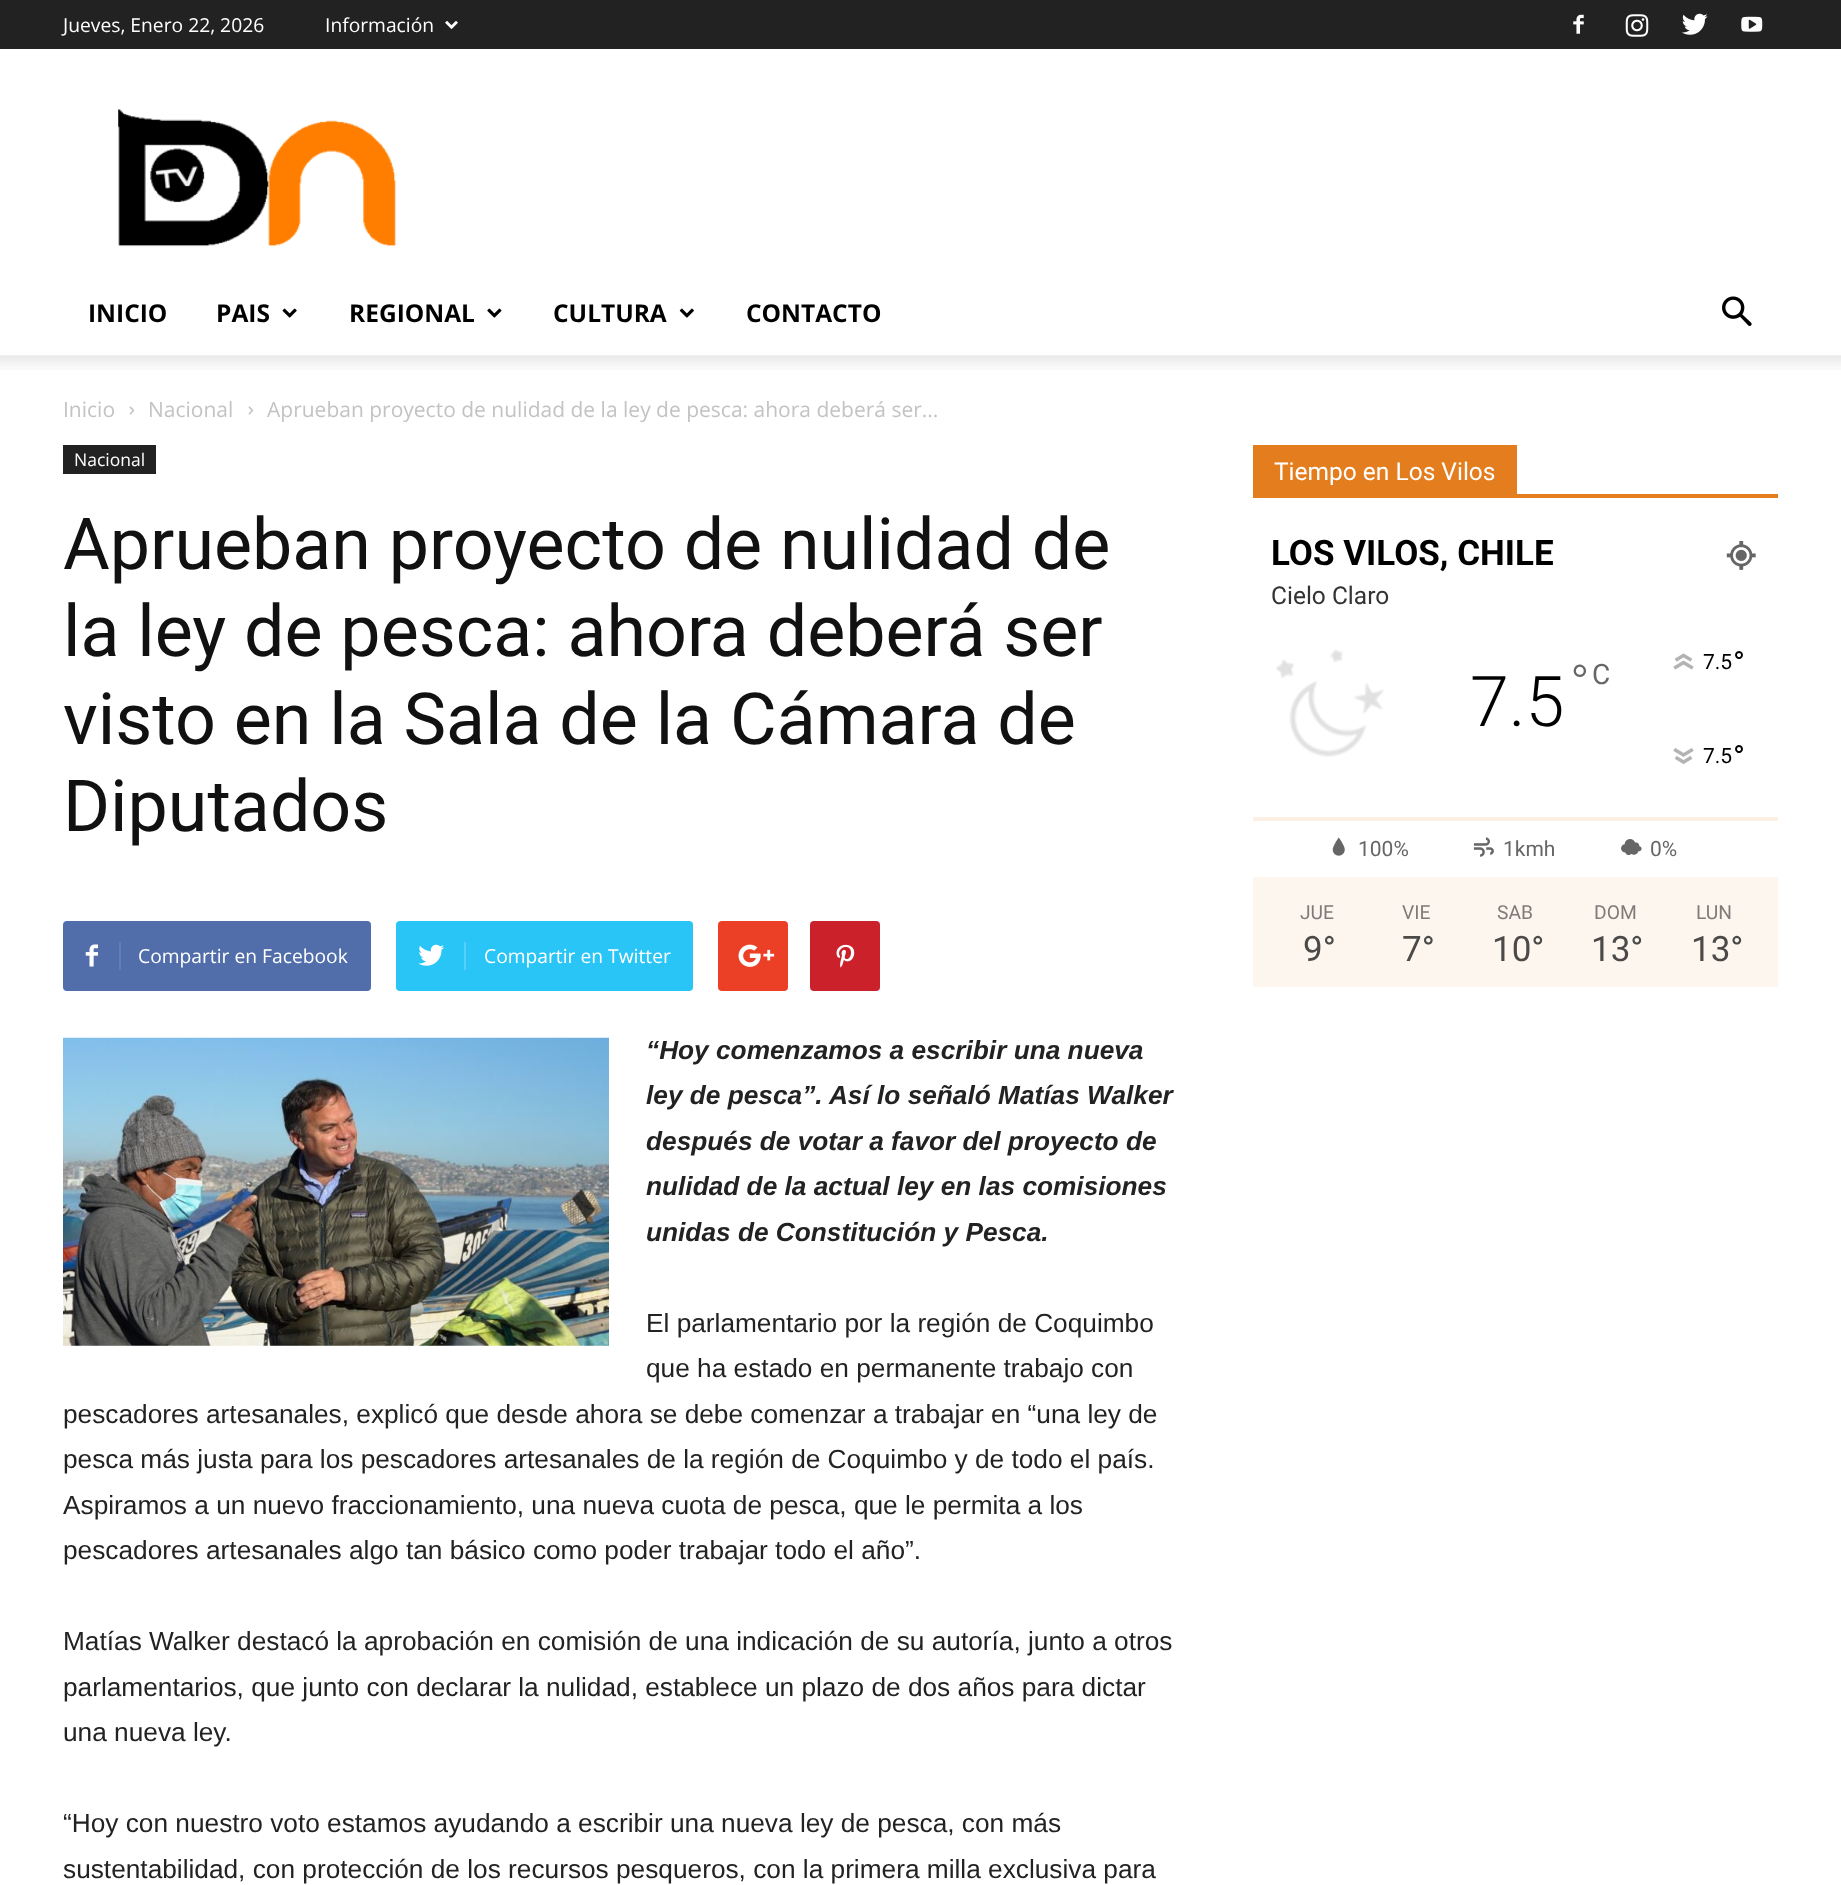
<svg xmlns="http://www.w3.org/2000/svg" width="1841" height="1885">
<rect width="100%" height="100%" fill="#fff"/>
<rect width="1841" height="49" fill="#222"/>
<text x="63" y="32" style="font-family:Open Sans;font-size:19.25px;fill:#fff">Jueves, Enero 22, 2026</text>
<text x="325" y="32" style="font-family:Open Sans;font-size:19.25px;fill:#fff">Información</text>
<image x="445" y="21" width="13" height="8" href="media/1.png"/>
<image x="1573" y="14" width="11" height="20" href="media/2.png"/>
<image x="1625" y="14" width="24" height="23" href="media/3.png"/>
<image x="1682" y="13" width="26" height="22" href="media/4.png"/>
<image x="1741" y="16" width="22" height="16" href="media/5.png"/>
<image x="118" y="109" width="278" height="138" href="media/6.png"/>
<text x="88" y="322" style="font-family:Open Sans;font-size:24.5px;font-weight:bold;fill:#000">INICIO</text>
<text x="216" y="322" style="font-family:Open Sans;font-size:24.5px;font-weight:bold;fill:#000">PAIS</text>
<image x="282" y="308" width="15" height="10" href="media/7.png"/>
<text x="349" y="322" style="font-family:Open Sans;font-size:24.5px;font-weight:bold;fill:#000">REGIONAL</text>
<image x="487" y="308" width="15" height="10" href="media/8.png"/>
<text x="553" y="322" style="font-family:Open Sans;font-size:24.5px;font-weight:bold;fill:#000">CULTURA</text>
<image x="679" y="308" width="15" height="10" href="media/9.png"/>
<text x="746" y="322" style="font-family:Open Sans;font-size:24.5px;font-weight:bold;fill:#000">CONTACTO</text>
<image x="1722" y="296" width="30" height="30" href="media/10.png"/>
<image x="0" y="355" width="1841" height="15" href="media/11.png"/>
<text x="63" y="417" style="font-family:Open Sans;font-size:21px;fill:#c3c3c3">Inicio</text>
<image x="129" y="406" width="6" height="9" href="media/12.png"/>
<text x="148" y="417" style="font-family:Open Sans;font-size:21px;fill:#c3c3c3">Nacional</text>
<image x="248" y="406" width="6" height="9" href="media/12.png"/>
<text x="267" y="417" style="font-family:Open Sans;font-size:21px;fill:#c3c3c3">Aprueban proyecto de nulidad de la ley de pesca: ahora deberá ser...</text>
<rect x="63" y="445" width="93" height="29" fill="#222"/>
<text x="74" y="466" style="font-family:Open Sans;font-size:17.5px;fill:#fff">Nacional</text>
<text x="63" y="569" style="font-family:Roboto;font-size:71.75px;fill:#111">Aprueban proyecto de nulidad de</text>
<text x="63" y="656" style="font-family:Roboto;font-size:71.75px;fill:#111">la ley de pesca: ahora deberá ser</text>
<text x="63" y="744" style="font-family:Roboto;font-size:71.75px;fill:#111">visto en la Sala de la Cámara de</text>
<text x="63" y="831" style="font-family:Roboto;font-size:71.75px;fill:#111">Diputados</text>
<rect x="63" y="921" width="308" height="70" rx="4" fill="#516eab"/>
<image x="85" y="944" width="13" height="23" href="media/13.png"/>
<rect x="119" y="942" width="2" height="28" fill="#627db3"/>
<text x="138" y="963" style="font-family:Open Sans;font-size:19.25px;fill:#fff">Compartir en Facebook</text>
<rect x="396" y="921" width="297" height="70" rx="4" fill="#29c5f6"/>
<image x="418" y="944" width="26" height="22" href="media/14.png"/>
<rect x="464" y="942" width="2" height="28" fill="#54d1f8"/>
<text x="484" y="963" style="font-family:Open Sans;font-size:19.25px;fill:#fff">Compartir en Twitter</text>
<rect x="718" y="921" width="70" height="70" rx="4" fill="#eb4026"/>
<image x="738" y="944" width="37" height="23" href="media/15.png"/>
<rect x="810" y="921" width="70" height="70" rx="4" fill="#ca212a"/>
<image x="836" y="944" width="19" height="24" href="media/16.png"/>
<image x="63" y="1037" width="546" height="309" href="media/17.png"/>
<text x="646" y="1059" style="font-family:Liberation Sans;font-size:26.25px;font-weight:bold;font-style:italic;fill:#222">“Hoy comenzamos a escribir una nueva</text>
<text x="646" y="1104" style="font-family:Liberation Sans;font-size:26.25px;font-weight:bold;font-style:italic;fill:#222">ley de pesca”. Así lo señaló Matías Walker</text>
<text x="646" y="1150" style="font-family:Liberation Sans;font-size:26.25px;font-weight:bold;font-style:italic;fill:#222">después de votar a favor del proyecto de</text>
<text x="646" y="1195" style="font-family:Liberation Sans;font-size:26.25px;font-weight:bold;font-style:italic;fill:#222">nulidad de la actual ley en las comisiones</text>
<text x="646" y="1241" style="font-family:Liberation Sans;font-size:26.25px;font-weight:bold;font-style:italic;fill:#222">unidas de Constitución y Pesca.</text>
<text x="646" y="1332" style="font-family:Liberation Sans;font-size:26.25px;fill:#222">El parlamentario por la región de Coquimbo</text>
<text x="646" y="1377" style="font-family:Liberation Sans;font-size:26.25px;fill:#222">que ha estado en permanente trabajo con</text>
<text x="63" y="1423" style="font-family:Liberation Sans;font-size:26.25px;fill:#222">pescadores artesanales, explicó que desde ahora se debe comenzar a trabajar en “una ley de</text>
<text x="63" y="1468" style="font-family:Liberation Sans;font-size:26.25px;fill:#222">pesca más justa para los pescadores artesanales de la región de Coquimbo y de todo el país.</text>
<text x="63" y="1514" style="font-family:Liberation Sans;font-size:26.25px;fill:#222">Aspiramos a un nuevo fraccionamiento, una nueva cuota de pesca, que le permita a los</text>
<text x="63" y="1559" style="font-family:Liberation Sans;font-size:26.25px;fill:#222">pescadores artesanales algo tan básico como poder trabajar todo el año”.</text>
<text x="63" y="1650" style="font-family:Liberation Sans;font-size:26.25px;fill:#222">Matías Walker destacó la aprobación en comisión de una indicación de su autoría, junto a otros</text>
<text x="63" y="1696" style="font-family:Liberation Sans;font-size:26.25px;fill:#222">parlamentarios, que junto con declarar la nulidad, establece un plazo de dos años para dictar</text>
<text x="63" y="1741" style="font-family:Liberation Sans;font-size:26.25px;fill:#222">una nueva ley.</text>
<text x="63" y="1832" style="font-family:Liberation Sans;font-size:26.25px;fill:#222">“Hoy con nuestro voto estamos ayudando a escribir una nueva ley de pesca, con más</text>
<text x="63" y="1878" style="font-family:Liberation Sans;font-size:26.25px;fill:#222">sustentabilidad, con protección de los recursos pesqueros, con la primera milla exclusiva para</text>
<rect x="1253" y="494" width="525" height="4" fill="#e37d1d"/>
<rect x="1253" y="445" width="264" height="49" fill="#e37d1d"/>
<text x="1274" y="480" style="font-family:Roboto;font-size:24.5px;fill:#fff">Tiempo en Los Vilos</text>
<text x="1271" y="565" style="font-family:Roboto;font-size:35px;font-weight:bold;fill:#000">LOS VILOS, CHILE</text>
<image x="1726" y="541" width="30" height="29" href="media/18.png"/>
<text x="1271" y="604" style="font-family:Roboto;font-size:24.5px;fill:#333">Cielo Claro</text>
<image x="1276" y="649" width="108" height="108" href="media/19.png"/>
<text x="1570" y="702" style="font-family:Roboto;font-size:52px;font-weight:300;fill:#666">°</text>
<text x="1592" y="684" style="font-family:Roboto;font-size:28px;fill:#666">C</text>
<text x="1470" y="726" style="font-family:Roboto;font-size:70px;font-weight:300;fill:#000">7.5</text>
<image x="1673" y="653" width="21" height="17" href="media/20.png"/>
<text x="1703" y="669" style="font-family:Roboto;font-size:21px;fill:#000">7.5</text>
<text x="1733" y="674" style="font-family:Roboto;font-size:32px;fill:#000">°</text>
<image x="1673" y="748" width="21" height="16" href="media/21.png"/>
<text x="1703" y="763" style="font-family:Roboto;font-size:21px;fill:#000">7.5</text>
<text x="1733" y="768" style="font-family:Roboto;font-size:32px;fill:#000">°</text>
<rect x="1253" y="817" width="525" height="4" fill="#fcefe4"/>
<image x="1332" y="837" width="13" height="19" href="media/22.png"/>
<text x="1358" y="856" style="font-family:Roboto;font-size:21px;fill:#666">100%</text>
<image x="1473" y="837" width="21" height="20" href="media/23.png"/>
<text x="1503" y="856" style="font-family:Roboto;font-size:21px;fill:#666">1kmh</text>
<image x="1621" y="839" width="21" height="17" href="media/24.png"/>
<text x="1650" y="856" style="font-family:Roboto;font-size:21px;fill:#666">0%</text>
<rect x="1253" y="877" width="525" height="110" fill="#fdf6ef"/>
<text x="1300" y="919" style="font-family:Roboto;font-size:19.25px;fill:#7f7b78">JUE</text>
<text x="1303" y="961" style="font-family:Roboto;font-size:35px;fill:#4c4a48">9°</text>
<text x="1402" y="919" style="font-family:Roboto;font-size:19.25px;fill:#7f7b78">VIE</text>
<text x="1402" y="961" style="font-family:Roboto;font-size:35px;fill:#4c4a48">7°</text>
<text x="1497" y="919" style="font-family:Roboto;font-size:19.25px;fill:#7f7b78">SAB</text>
<text x="1492" y="961" style="font-family:Roboto;font-size:35px;fill:#4c4a48">10°</text>
<text x="1594" y="919" style="font-family:Roboto;font-size:19.25px;fill:#7f7b78">DOM</text>
<text x="1591" y="961" style="font-family:Roboto;font-size:35px;fill:#4c4a48">13°</text>
<text x="1696" y="919" style="font-family:Roboto;font-size:19.25px;fill:#7f7b78">LUN</text>
<text x="1691" y="961" style="font-family:Roboto;font-size:35px;fill:#4c4a48">13°</text>
</svg>
